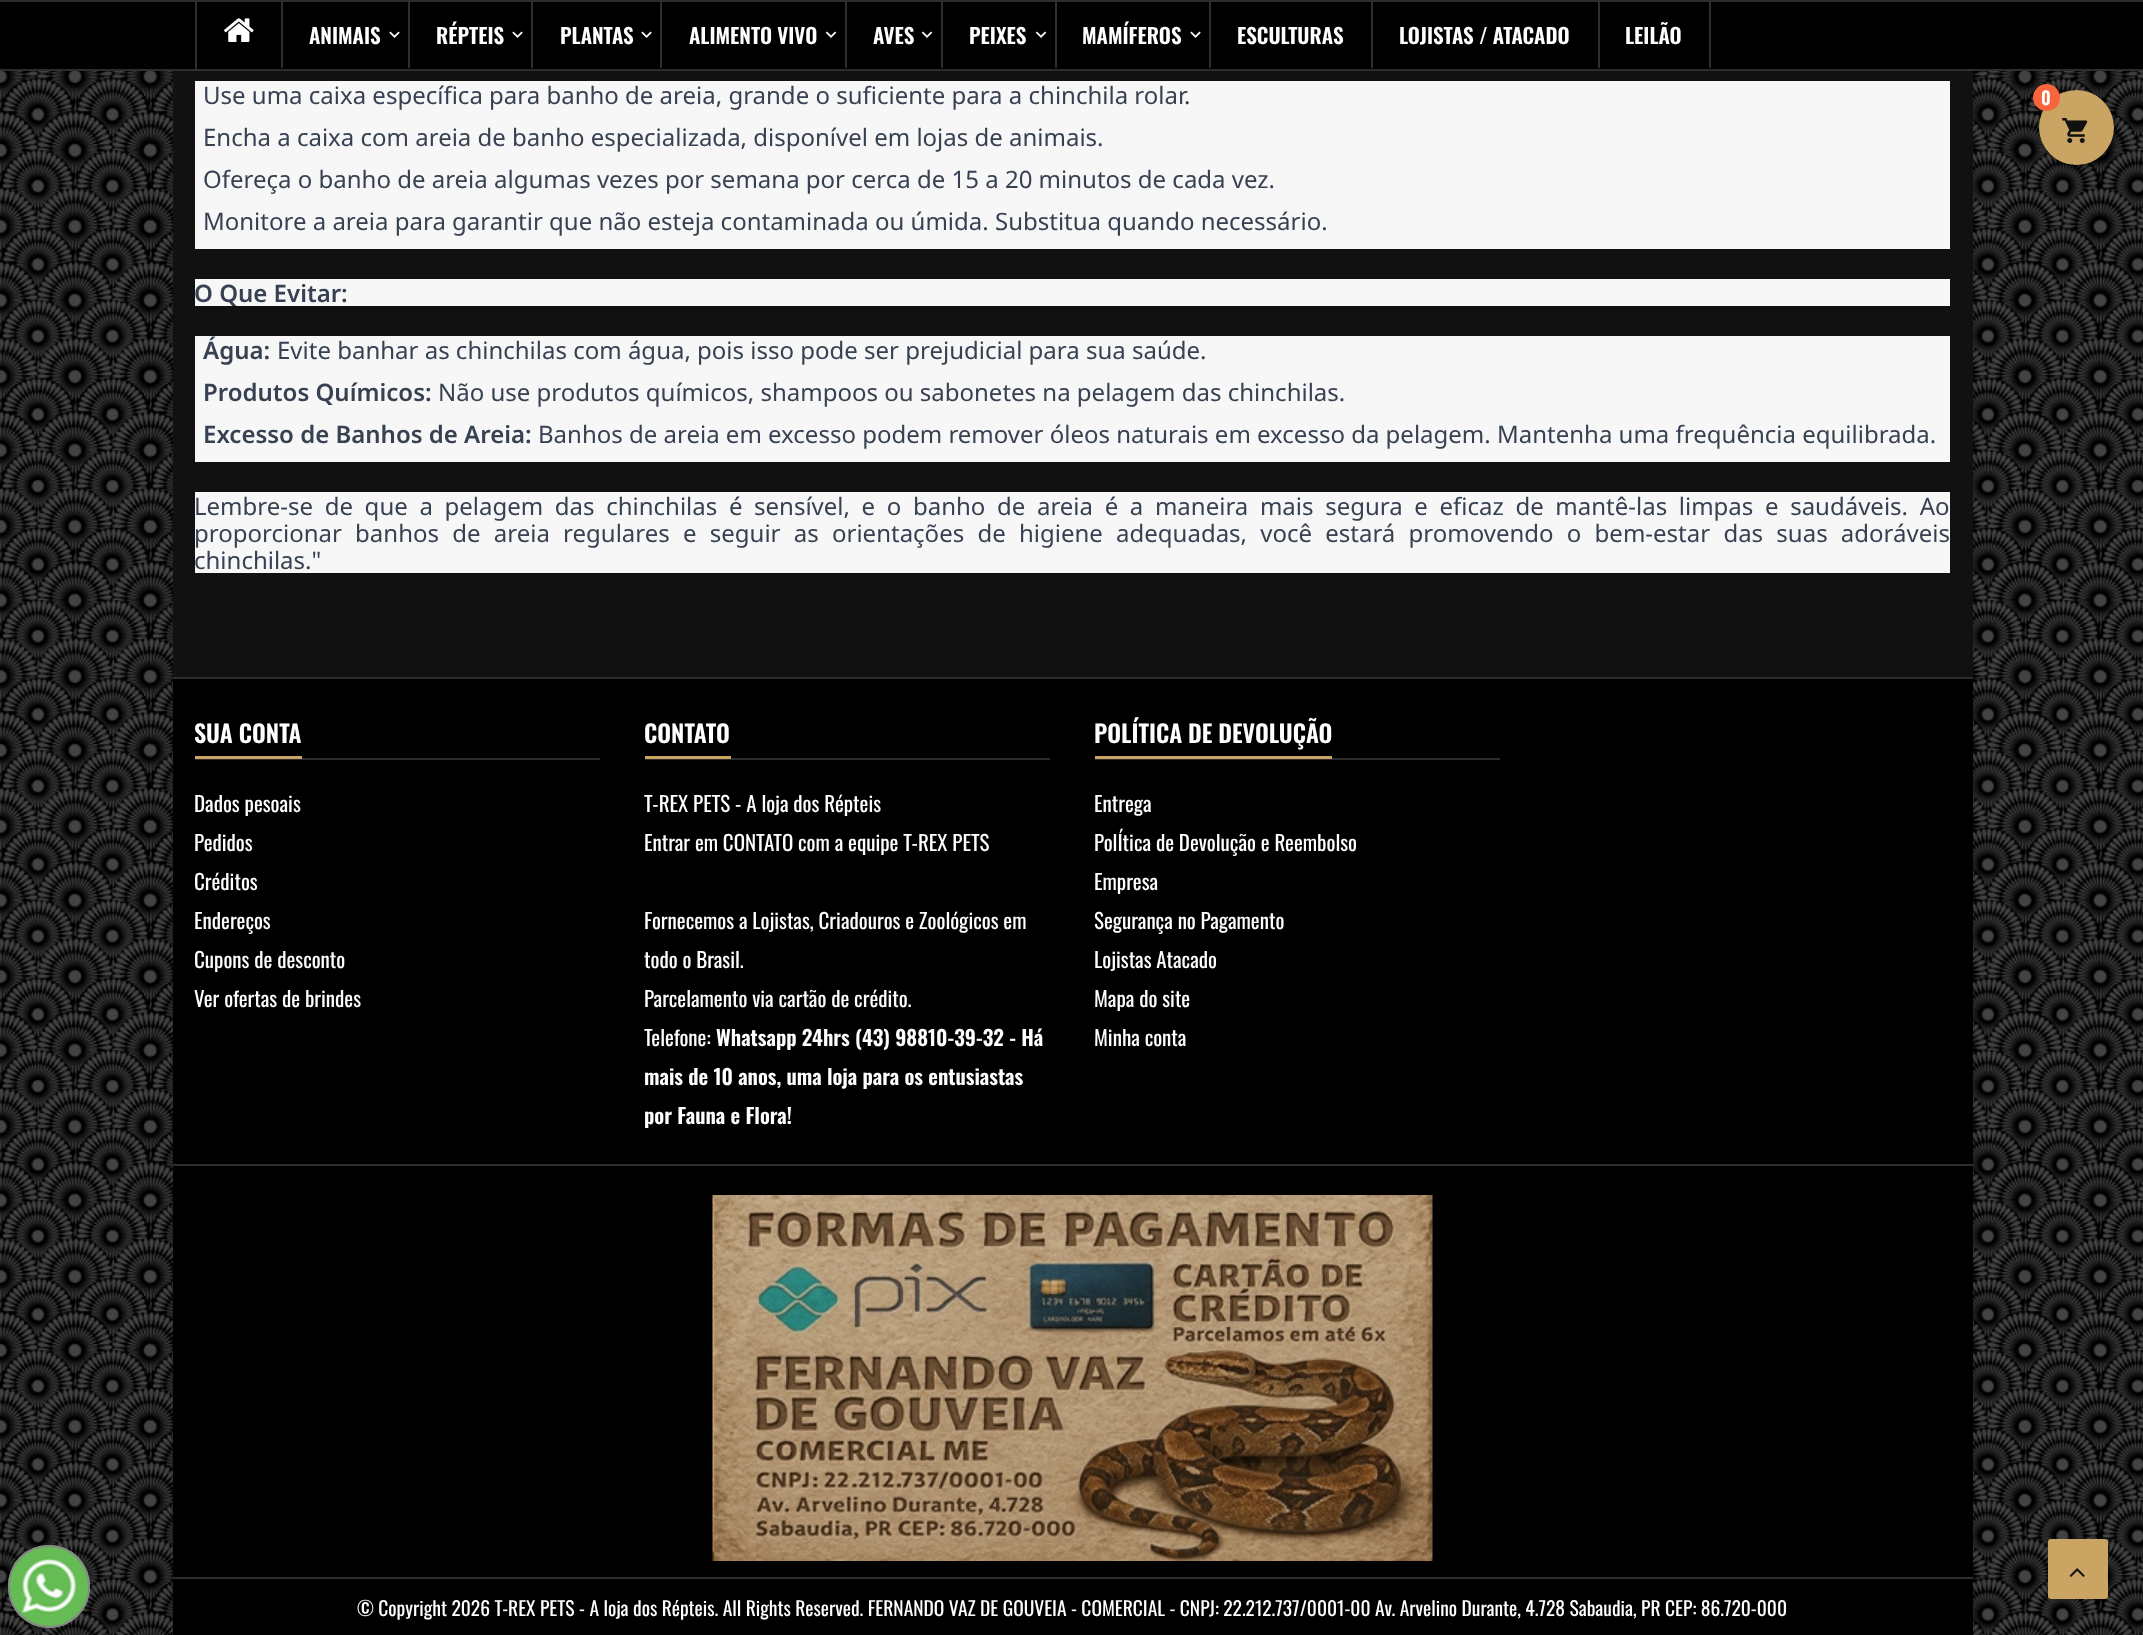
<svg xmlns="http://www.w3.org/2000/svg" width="2143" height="1635">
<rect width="100%" height="100%" fill="#000"/>
<image x="0" y="71" width="2143" height="1564" href="media/1.png"/>
<rect x="173" y="-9" width="1800" height="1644" fill="#00000033" filter="blur(3px)"/>
<rect x="173" y="71" width="1800" height="606" fill="#111"/>
<rect width="2143" height="2" fill="#2d2d2d"/>
<rect y="69" width="2143" height="2" fill="#2d2d2d"/>
<rect x="195" y="2" width="2" height="67" fill="#2d2d2d"/>
<image x="224" y="18" width="30" height="24" href="media/2.png"/>
<rect x="281" y="2" width="2" height="66" fill="#2d2d2d"/>
<text x="309" y="44" style="font-family:Oswald;font-size:21px;font-weight:600;fill:#fff">ANIMAIS</text>
<image x="389" y="31" width="11" height="7" href="media/3.png"/>
<rect x="408" y="2" width="2" height="66" fill="#2d2d2d"/>
<text x="436" y="44" style="font-family:Oswald;font-size:21px;font-weight:600;fill:#fff">RÉPTEIS</text>
<image x="512" y="31" width="11" height="7" href="media/3.png"/>
<rect x="531" y="2" width="2" height="66" fill="#2d2d2d"/>
<text x="560" y="44" style="font-family:Oswald;font-size:21px;font-weight:600;fill:#fff">PLANTAS</text>
<image x="641" y="31" width="11" height="7" href="media/3.png"/>
<rect x="660" y="2" width="2" height="66" fill="#2d2d2d"/>
<text x="689" y="44" style="font-family:Oswald;font-size:21px;font-weight:600;fill:#fff">ALIMENTO VIVO</text>
<image x="825" y="31" width="12" height="7" href="media/4.png"/>
<rect x="845" y="2" width="2" height="66" fill="#2d2d2d"/>
<text x="873" y="44" style="font-family:Oswald;font-size:21px;font-weight:600;fill:#fff">AVES</text>
<image x="921" y="31" width="12" height="7" href="media/4.png"/>
<rect x="941" y="2" width="2" height="66" fill="#2d2d2d"/>
<text x="969" y="44" style="font-family:Oswald;font-size:21px;font-weight:600;fill:#fff">PEIXES</text>
<image x="1035" y="31" width="12" height="7" href="media/4.png"/>
<rect x="1055" y="2" width="2" height="66" fill="#2d2d2d"/>
<text x="1082" y="44" style="font-family:Oswald;font-size:21px;font-weight:600;fill:#fff">MAMÍFEROS</text>
<image x="1190" y="31" width="11" height="7" href="media/3.png"/>
<rect x="1209" y="2" width="2" height="66" fill="#2d2d2d"/>
<text x="1237" y="44" style="font-family:Oswald;font-size:21px;font-weight:600;fill:#fff">ESCULTURAS</text>
<rect x="1371" y="2" width="2" height="66" fill="#2d2d2d"/>
<text x="1399" y="44" style="font-family:Oswald;font-size:21px;font-weight:600;fill:#fff">LOJISTAS / ATACADO</text>
<rect x="1709" y="2" width="2" height="66" fill="#2d2d2d"/>
<rect x="1598" y="2" width="2" height="66" fill="#2d2d2d"/>
<text x="1625" y="44" style="font-family:Oswald;font-size:21px;font-weight:600;fill:#fff">LEILÃO</text>
<rect x="2042" y="93" width="75" height="75" rx="37.5" fill="#00000080" filter="blur(3px)"/>
<circle cx="2076.5" cy="127.5" r="37.5" fill="#caa462"/>
<circle cx="2046.5" cy="97.5" r="13.5" fill="#f8653d"/>
<text x="2041" y="105" style="font-family:Oswald;font-size:18px;font-weight:600;fill:#fff">0</text>
<image x="2062" y="118" width="26" height="25" href="media/5.png"/>
<rect x="195" y="81" width="1755" height="168" fill="#f7f7f8"/>
<text x="203" y="104" style="font-family:Noto Sans;font-size:24px;fill:#374151">Use uma caixa específica para banho de areia, grande o suficiente para a chinchila rolar.</text>
<text x="203" y="146" style="font-family:Noto Sans;font-size:24px;fill:#374151">Encha a caixa com areia de banho especializada, disponível em lojas de animais.</text>
<text x="203" y="188" style="font-family:Noto Sans;font-size:24px;fill:#374151">Ofereça o banho de areia algumas vezes por semana por cerca de 15 a 20 minutos de cada vez.</text>
<text x="203" y="230" style="font-family:Noto Sans;font-size:24px;fill:#374151">Monitore a areia para garantir que não esteja contaminada ou úmida. Substitua quando necessário.</text>
<rect x="195" y="279" width="1755" height="27" fill="#f7f7f8"/>
<text x="194" y="302" style="font-family:Noto Sans;font-size:24px;font-weight:600;fill:#374151">O Que Evitar:</text>
<rect x="195" y="336" width="1755" height="126" fill="#f7f7f8"/>
<text x="203" y="359" style="font-family:Noto Sans;font-size:24px;font-weight:600;fill:#374151">Água:</text>
<text x="277" y="359" style="font-family:Noto Sans;font-size:24px;fill:#374151">Evite banhar as chinchilas com água, pois isso pode ser prejudicial para sua saúde.</text>
<text x="203" y="401" style="font-family:Noto Sans;font-size:24px;font-weight:600;fill:#374151">Produtos Químicos:</text>
<text x="438" y="401" style="font-family:Noto Sans;font-size:24px;fill:#374151">Não use produtos químicos, shampoos ou sabonetes na pelagem das chinchilas.</text>
<text x="203" y="443" style="font-family:Noto Sans;font-size:24px;font-weight:600;fill:#374151">Excesso de Banhos de Areia:</text>
<text x="538" y="443" style="font-family:Noto Sans;font-size:24px;fill:#374151">Banhos de areia em excesso podem remover óleos naturais em excesso da pelagem. Mantenha uma frequência equilibrada.</text>
<rect x="195" y="492" width="1755" height="81" fill="#f7f7f8"/>
<text x="194" y="515" word-spacing="5.4" style="font-family:Noto Sans;font-size:24px;fill:#374151">Lembre-se de que a pelagem das chinchilas é sensível, e o banho de areia é a maneira mais segura e eficaz de mantê-las limpas e saudáveis. Ao</text>
<text x="194" y="542" word-spacing="7" style="font-family:Noto Sans;font-size:24px;fill:#374151">proporcionar banhos de areia regulares e seguir as orientações de higiene adequadas, você estará promovendo o bem-estar das suas adoráveis</text>
<text x="194" y="569" style="font-family:Noto Sans;font-size:24px;fill:#374151">chinchilas."</text>
<rect x="173" y="679" width="1800" height="956" fill="#000"/>
<rect x="173" y="677" width="1800" height="2" fill="#2d2d2d"/>
<rect x="195" y="758" width="405" height="2" fill="#2d2d2d"/>
<rect x="195" y="756" width="107" height="3" fill="#caa462"/>
<text x="194" y="743" style="font-family:Oswald;font-size:24px;font-weight:600;fill:#fff">SUA CONTA</text>
<text x="194" y="812" style="font-family:Oswald;font-size:21px;fill:#fff">Dados pesoais</text>
<text x="194" y="851" style="font-family:Oswald;font-size:21px;fill:#fff">Pedidos</text>
<text x="194" y="890" style="font-family:Oswald;font-size:21px;fill:#fff">Créditos</text>
<text x="194" y="929" style="font-family:Oswald;font-size:21px;fill:#fff">Endereços</text>
<text x="194" y="968" style="font-family:Oswald;font-size:21px;fill:#fff">Cupons de desconto</text>
<text x="194" y="1007" style="font-family:Oswald;font-size:21px;fill:#fff">Ver ofertas de brindes</text>
<rect x="645" y="758" width="405" height="2" fill="#2d2d2d"/>
<rect x="645" y="756" width="86" height="3" fill="#caa462"/>
<text x="644" y="743" style="font-family:Oswald;font-size:24px;font-weight:600;fill:#fff">CONTATO</text>
<text x="644" y="812" style="font-family:Oswald;font-size:21px;fill:#fff">T-REX PETS - A loja dos Répteis</text>
<text x="644" y="851" style="font-family:Oswald;font-size:21px;fill:#fff">Entrar em CONTATO com a equipe T-REX PETS</text>
<text x="644" y="929" style="font-family:Oswald;font-size:21px;fill:#fff">Fornecemos a Lojistas, Criadouros e Zoológicos em</text>
<text x="644" y="968" style="font-family:Oswald;font-size:21px;fill:#fff">todo o Brasil.</text>
<text x="644" y="1007" style="font-family:Oswald;font-size:21px;fill:#fff">Parcelamento via cartão de crédito.</text>
<text x="644" y="1046" style="font-family:Oswald;font-size:21px;fill:#fff">Telefone:</text>
<text x="716" y="1046" style="font-family:Oswald;font-size:21px;font-weight:600;fill:#fff">Whatsapp 24hrs (43) 98810-39-32 - Há</text>
<text x="644" y="1085" style="font-family:Oswald;font-size:21px;font-weight:600;fill:#fff">mais de 10 anos, uma loja para os entusiastas</text>
<text x="644" y="1124" style="font-family:Oswald;font-size:21px;font-weight:600;fill:#fff">por Fauna e Flora!</text>
<rect x="1095" y="758" width="405" height="2" fill="#2d2d2d"/>
<rect x="1095" y="756" width="237" height="3" fill="#caa462"/>
<text x="1094" y="743" style="font-family:Oswald;font-size:24px;font-weight:600;fill:#fff">POLÍTICA DE DEVOLUÇÃO</text>
<text x="1094" y="812" style="font-family:Oswald;font-size:21px;fill:#fff">Entrega</text>
<text x="1094" y="851" style="font-family:Oswald;font-size:21px;fill:#fff">PolÍtica de Devolução e Reembolso</text>
<text x="1094" y="890" style="font-family:Oswald;font-size:21px;fill:#fff">Empresa</text>
<text x="1094" y="929" style="font-family:Oswald;font-size:21px;fill:#fff">Segurança no Pagamento</text>
<text x="1094" y="968" style="font-family:Oswald;font-size:21px;fill:#fff">Lojistas Atacado</text>
<text x="1094" y="1007" style="font-family:Oswald;font-size:21px;fill:#fff">Mapa do site</text>
<text x="1094" y="1046" style="font-family:Oswald;font-size:21px;fill:#fff">Minha conta</text>
<rect x="8" y="1545" width="82" height="83" rx="41" fill="#65bc54"/>
<image x="14" y="1552" width="69" height="68" href="media/6.png"/>
<rect x="9" y="1546" width="80" height="81" rx="40" fill="none" stroke="#888" stroke-width="2"/>
<rect x="2048" y="1539" width="60" height="60" rx="3" fill="#caa462"/>
<image x="2069" y="1568" width="16" height="9" href="media/7.png"/>
<rect x="173" y="1164" width="1800" height="2" fill="#2d2d2d"/>
<image x="712" y="1195" width="721" height="366" href="media/8.png"/>
<rect x="173" y="1577" width="1800" height="2" fill="#2d2d2d"/>
<text x="357" y="1616" style="font-family:Oswald;font-size:19.5px;fill:#fff">© Copyright 2026 T-REX PETS - A loja dos Répteis. All Rights Reserved. FERNANDO VAZ DE GOUVEIA - COMERCIAL - CNPJ: 22.212.737/0001-00 Av. Arvelino Durante, 4.728 Sabaudia, PR CEP: 86.720-000</text>
</svg>
